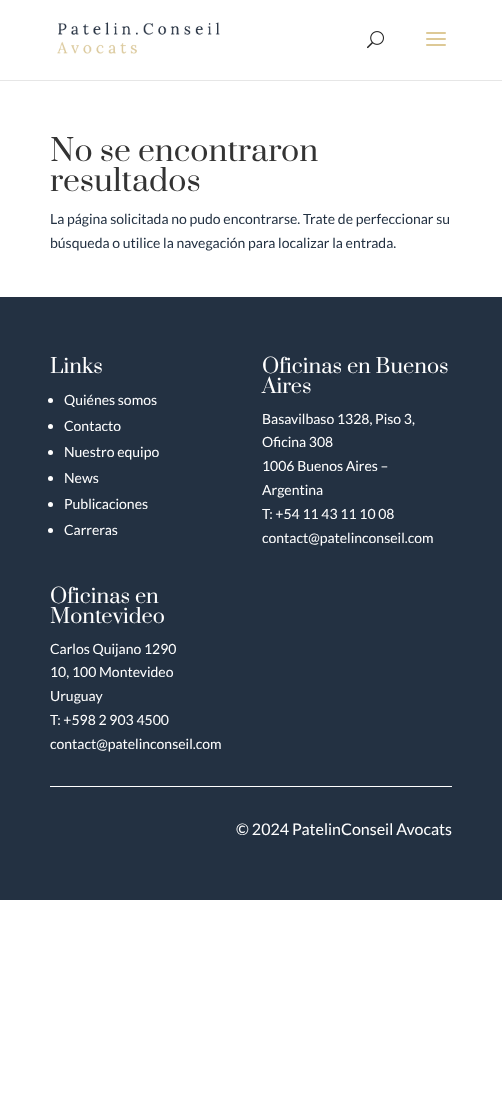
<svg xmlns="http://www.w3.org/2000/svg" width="502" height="1120">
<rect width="100%" height="100%" fill="#fff"/>
<rect y="80" width="502" height="1" fill="#e6e6e6"/>
<image x="57" y="22" width="163" height="32" href="media/1.png"/>
<image x="367" y="31" width="17" height="18" href="media/2.png"/>
<image x="426" y="32" width="20" height="14" href="media/3.png"/>
<text x="50" y="161" style="font-family:Prata;font-size:30px;fill:#333">No se encontraron</text>
<text x="50" y="191" style="font-family:Prata;font-size:30px;fill:#333">resultados</text>
<text x="50" y="224" style="font-family:Lato;font-size:14px;fill:#233142">La página solicitada no pudo encontrarse. Trate de perfeccionar su</text>
<text x="50" y="248" style="font-family:Lato;font-size:14px;fill:#233142">búsqueda o utilice la navegación para localizar la entrada.</text>
<rect y="297" width="502" height="603" fill="#233142"/>
<text x="50" y="373" style="font-family:Prata;font-size:20px;fill:#fff">Links</text>
<circle cx="50.5" cy="400.5" r="2.5" fill="#fff"/>
<text x="64" y="405" style="font-family:Lato;font-size:14px;fill:#fff">Quiénes somos</text>
<circle cx="50.5" cy="426.5" r="2.5" fill="#fff"/>
<text x="64" y="431" style="font-family:Lato;font-size:14px;fill:#fff">Contacto</text>
<circle cx="50.5" cy="452.5" r="2.5" fill="#fff"/>
<text x="64" y="457" style="font-family:Lato;font-size:14px;fill:#fff">Nuestro equipo</text>
<circle cx="50.5" cy="478.5" r="2.5" fill="#fff"/>
<text x="64" y="483" style="font-family:Lato;font-size:14px;fill:#fff">News</text>
<circle cx="50.5" cy="504.5" r="2.5" fill="#fff"/>
<text x="64" y="509" style="font-family:Lato;font-size:14px;fill:#fff">Publicaciones</text>
<circle cx="50.5" cy="530.5" r="2.5" fill="#fff"/>
<text x="64" y="535" style="font-family:Lato;font-size:14px;fill:#fff">Carreras</text>
<text x="262" y="373" style="font-family:Prata;font-size:20px;fill:#fff">Oficinas en Buenos</text>
<text x="262" y="393" style="font-family:Prata;font-size:20px;fill:#fff">Aires</text>
<text x="262" y="424" style="font-family:Lato;font-size:14px;fill:#fff">Basavilbaso 1328, Piso 3,</text>
<text x="262" y="447" style="font-family:Lato;font-size:14px;fill:#fff">Oficina 308</text>
<text x="262" y="471" style="font-family:Lato;font-size:14px;fill:#fff">1006 Buenos Aires –</text>
<text x="262" y="495" style="font-family:Lato;font-size:14px;fill:#fff">Argentina</text>
<text x="262" y="519" style="font-family:Lato;font-size:14px;fill:#fff">T: +54 11 43 11 10 08</text>
<text x="262" y="543" style="font-family:Lato;font-size:14px;fill:#fff">contact@patelinconseil.com</text>
<text x="50" y="603" style="font-family:Prata;font-size:20px;fill:#fff">Oficinas en</text>
<text x="50" y="623" style="font-family:Prata;font-size:20px;fill:#fff">Montevideo</text>
<text x="50" y="654" style="font-family:Lato;font-size:14px;fill:#fff">Carlos Quijano 1290</text>
<text x="50" y="677" style="font-family:Lato;font-size:14px;fill:#fff">10, 100 Montevideo</text>
<text x="50" y="701" style="font-family:Lato;font-size:14px;fill:#fff">Uruguay</text>
<text x="50" y="725" style="font-family:Lato;font-size:14px;fill:#fff">T: +598 2 903 4500</text>
<text x="50" y="749" style="font-family:Lato;font-size:14px;fill:#fff">contact@patelinconseil.com</text>
<rect x="50" y="786" width="402" height="1" fill="#fff"/>
<text x="236" y="835" style="font-family:Lato;font-size:16px;fill:#fff">© 2024 PatelinConseil Avocats</text>
</svg>
